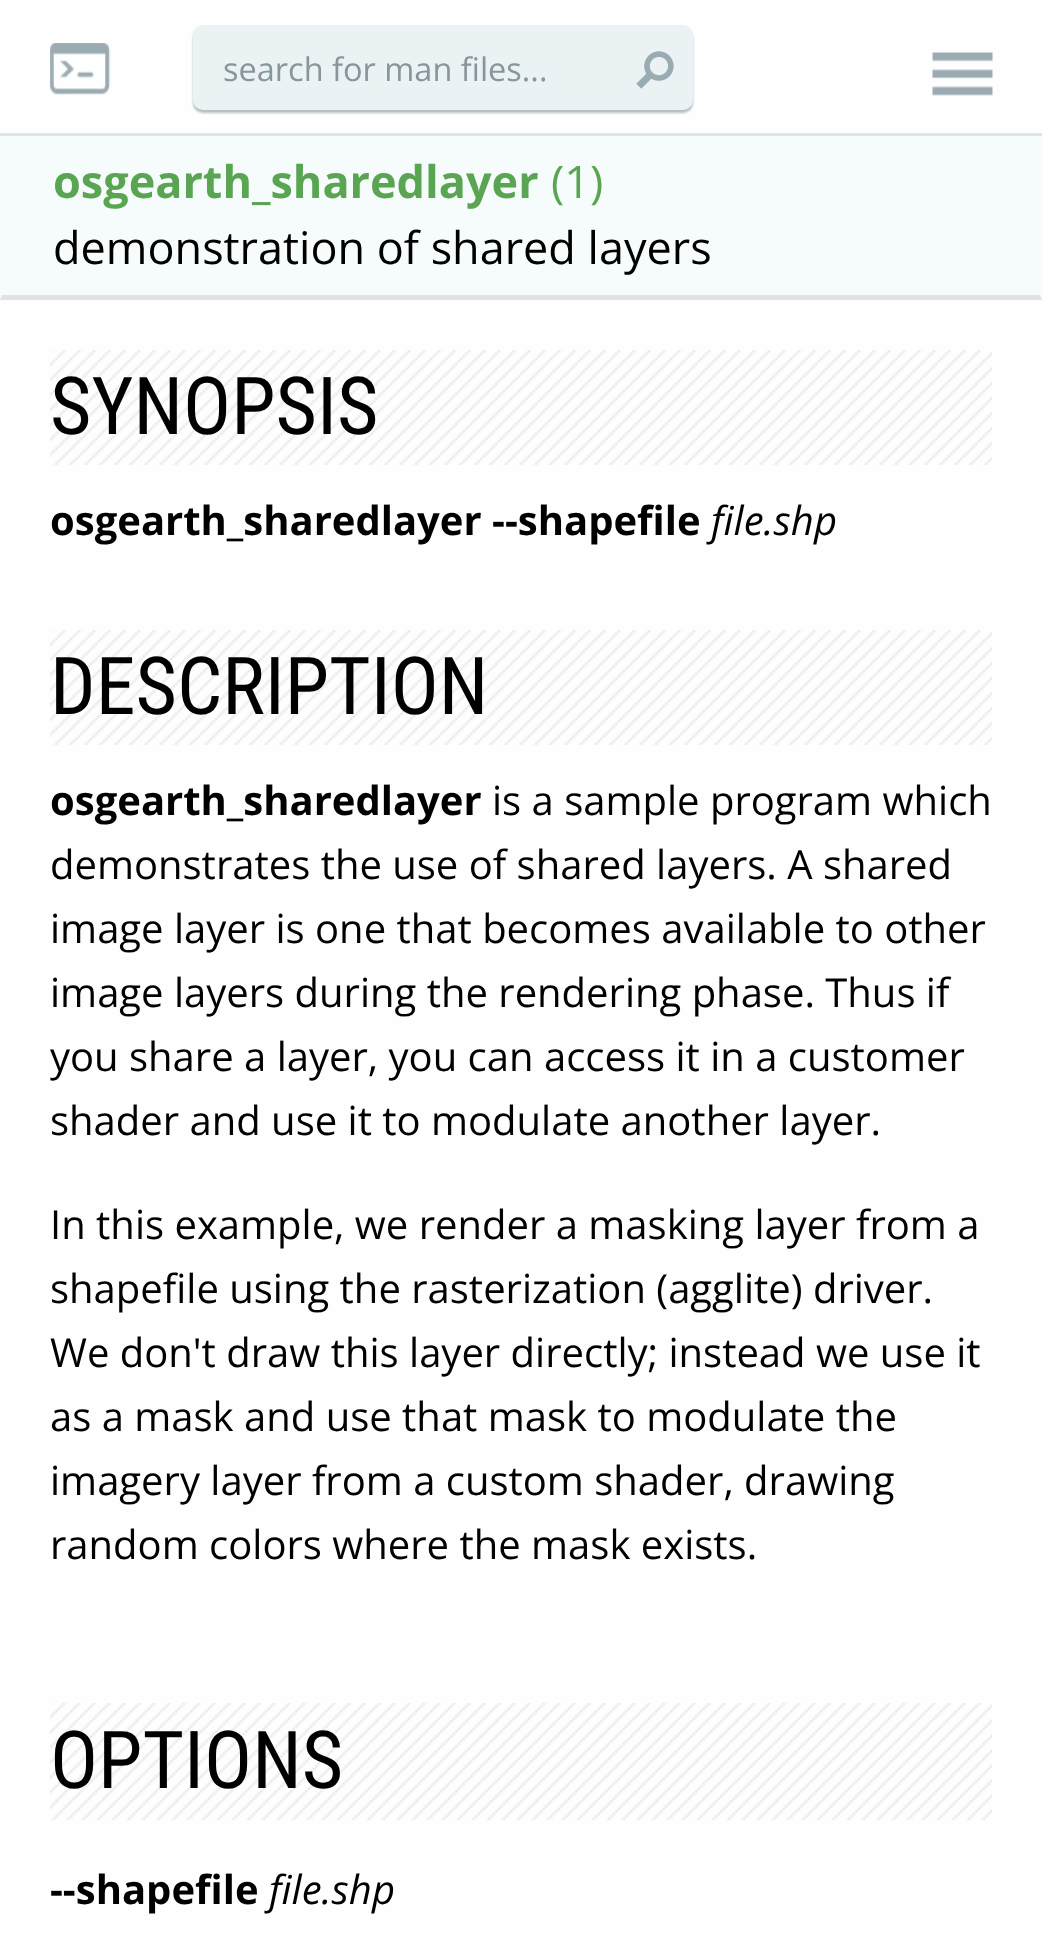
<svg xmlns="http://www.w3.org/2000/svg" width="1042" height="1956">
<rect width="100%" height="100%" fill="#fefefe"/>
<rect y="133" width="1042" height="3" fill="#dce5e7"/>
<image x="50" y="43" width="61" height="52" href="media/1.png"/>
<rect x="193" y="28" width="500" height="85" rx="10" fill="#062f374d" filter="blur(1px)"/>
<rect x="193" y="25" width="500" height="85" rx="10" fill="#eaf2f4"/>
<text x="223" y="81" style="font-family:Open Sans;font-size:32.5px;fill:#86969d">search for man files...</text>
<image x="636" y="51" width="38" height="38" href="media/2.png"/>
<image x="932" y="52" width="61" height="44" href="media/3.png"/>
<rect y="136" width="1042" height="164" fill="#f6fbfc"/>
<path d="M1042 300h-1042l2-5h1038z" fill="#dfe3e9"/>
<text x="53" y="198" style="font-family:Open Sans;font-size:45px;font-weight:bold;fill:#59a552">osgearth_sharedlayer</text>
<text x="551" y="198" style="font-family:Open Sans;font-size:45px;fill:#59a552">(1)</text>
<text x="53" y="264" style="font-family:Open Sans;font-size:45px;fill:#000">demonstration of shared layers</text>
<image x="50" y="350" width="942" height="115" href="media/4.png"/>
<text x="50" y="434" style="font-family:Roboto Condensed;font-size:80px;fill:#000">SYNOPSIS</text>
<text x="50" y="535" style="font-family:Open Sans;font-size:40px;font-weight:bold;fill:#000">osgearth_sharedlayer --shapefile</text>
<text x="711" y="535" style="font-family:Open Sans;font-size:40px;font-style:italic;fill:#000">file.shp</text>
<image x="50" y="630" width="942" height="115" href="media/4.png"/>
<text x="50" y="714" style="font-family:Roboto Condensed;font-size:80px;fill:#000">DESCRIPTION</text>
<text x="50" y="815" style="font-family:Open Sans;font-size:40px;font-weight:bold;fill:#000">osgearth_sharedlayer</text>
<text x="492" y="815" style="font-family:Open Sans;font-size:40px;fill:#000">is a sample program which</text>
<text x="50" y="879" style="font-family:Open Sans;font-size:40px;fill:#000">demonstrates the use of shared layers. A shared</text>
<text x="50" y="943" style="font-family:Open Sans;font-size:40px;fill:#000">image layer is one that becomes available to other</text>
<text x="50" y="1007" style="font-family:Open Sans;font-size:40px;fill:#000">image layers during the rendering phase. Thus if</text>
<text x="50" y="1071" style="font-family:Open Sans;font-size:40px;fill:#000">you share a layer, you can access it in a customer</text>
<text x="50" y="1135" style="font-family:Open Sans;font-size:40px;fill:#000">shader and use it to modulate another layer.</text>
<text x="50" y="1239" style="font-family:Open Sans;font-size:40px;fill:#000">In this example, we render a masking layer from a</text>
<text x="50" y="1303" style="font-family:Open Sans;font-size:40px;fill:#000">shapefile using the rasterization (agglite) driver.</text>
<text x="50" y="1367" style="font-family:Open Sans;font-size:40px;fill:#000">We don't draw this layer directly; instead we use it</text>
<text x="50" y="1431" style="font-family:Open Sans;font-size:40px;fill:#000">as a mask and use that mask to modulate the</text>
<text x="50" y="1495" style="font-family:Open Sans;font-size:40px;fill:#000">imagery layer from a custom shader, drawing</text>
<text x="50" y="1559" style="font-family:Open Sans;font-size:40px;fill:#000">random colors where the mask exists.</text>
<image x="50" y="1703" width="942" height="117" href="media/5.png"/>
<text x="50" y="1788" style="font-family:Roboto Condensed;font-size:80px;fill:#000">OPTIONS</text>
<text x="50" y="1904" style="font-family:Open Sans;font-size:40px;font-weight:bold;fill:#000">--shapefile</text>
<text x="269" y="1904" style="font-family:Open Sans;font-size:40px;font-style:italic;fill:#000">file.shp</text>
</svg>
